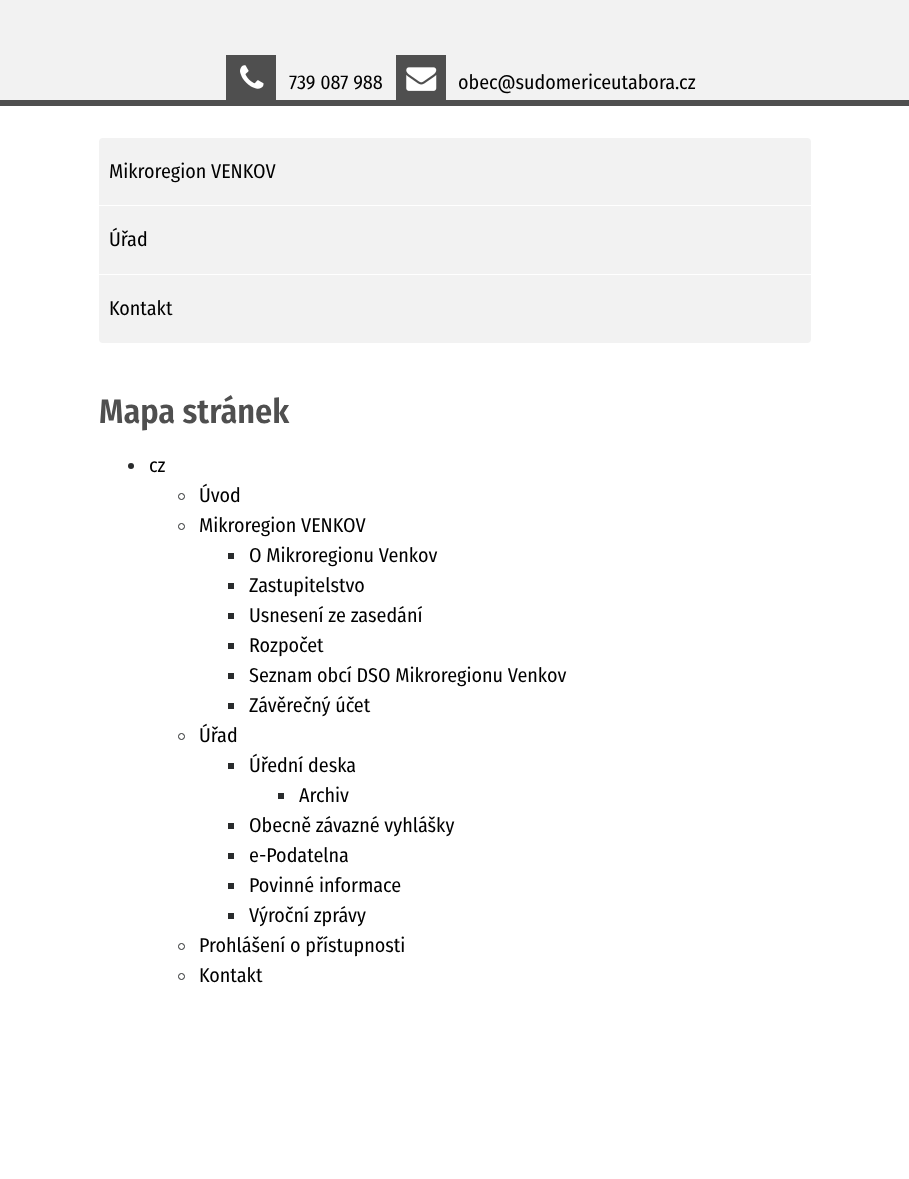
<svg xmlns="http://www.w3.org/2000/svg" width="909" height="1179">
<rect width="100%" height="100%" fill="#fff"/>
<rect width="909" height="100" fill="#f2f2f2"/>
<rect y="100" width="909" height="6" fill="#4f4f4f"/>
<rect x="226" y="55" width="50" height="45" fill="#4f4f4f"/>
<image x="240" y="65" width="24" height="24" href="media/1.png"/>
<text x="289" y="89" style="font-family:Fira Sans Condensed;font-size:20px;fill:#000">739 087 988</text>
<rect x="396" y="55" width="50" height="45" fill="#4f4f4f"/>
<image x="406" y="67" width="31" height="24" href="media/2.png"/>
<text x="458" y="89" style="font-family:Fira Sans Condensed;font-size:20px;fill:#000">obec@sudomericeutabora.cz</text>
<rect x="99" y="138" width="712" height="205" rx="4" fill="#f2f2f2"/>
<rect x="99" y="205" width="712" height="1" fill="#fff"/>
<text x="109" y="178" style="font-family:Fira Sans Condensed;font-size:20px;fill:#000">Mikroregion VENKOV</text>
<rect x="99" y="274" width="712" height="1" fill="#fff"/>
<text x="109" y="246" style="font-family:Fira Sans Condensed;font-size:20px;fill:#000">Úřad</text>
<text x="109" y="315" style="font-family:Fira Sans Condensed;font-size:20px;fill:#000">Kontakt</text>
<text x="99" y="423" style="font-family:Fira Sans Condensed;font-size:34px;font-weight:600;fill:#4f4f4f">Mapa stránek</text>
<circle cx="131" cy="466" r="3" fill="#292b2c"/>
<text x="149" y="472" style="font-family:Fira Sans Condensed;font-size:20px;fill:#000">cz</text>
<circle cx="181.5" cy="496.5" r="3" fill="none" stroke="#292b2c"/>
<text x="199" y="502" style="font-family:Fira Sans Condensed;font-size:20px;fill:#000">Úvod</text>
<circle cx="181.5" cy="526.5" r="3" fill="none" stroke="#292b2c"/>
<text x="199" y="532" style="font-family:Fira Sans Condensed;font-size:20px;fill:#000">Mikroregion VENKOV</text>
<rect x="228" y="553" width="6" height="6" fill="#292b2c"/>
<text x="249" y="562" style="font-family:Fira Sans Condensed;font-size:20px;fill:#000">O Mikroregionu Venkov</text>
<rect x="228" y="583" width="6" height="6" fill="#292b2c"/>
<text x="249" y="592" style="font-family:Fira Sans Condensed;font-size:20px;fill:#000">Zastupitelstvo</text>
<rect x="228" y="613" width="6" height="6" fill="#292b2c"/>
<text x="249" y="622" style="font-family:Fira Sans Condensed;font-size:20px;fill:#000">Usnesení ze zasedání</text>
<rect x="228" y="643" width="6" height="6" fill="#292b2c"/>
<text x="249" y="652" style="font-family:Fira Sans Condensed;font-size:20px;fill:#000">Rozpočet</text>
<rect x="228" y="673" width="6" height="6" fill="#292b2c"/>
<text x="249" y="682" style="font-family:Fira Sans Condensed;font-size:20px;fill:#000">Seznam obcí DSO Mikroregionu Venkov</text>
<rect x="228" y="703" width="6" height="6" fill="#292b2c"/>
<text x="249" y="712" style="font-family:Fira Sans Condensed;font-size:20px;fill:#000">Závěrečný účet</text>
<circle cx="181.5" cy="736.5" r="3" fill="none" stroke="#292b2c"/>
<text x="199" y="742" style="font-family:Fira Sans Condensed;font-size:20px;fill:#000">Úřad</text>
<rect x="228" y="763" width="6" height="6" fill="#292b2c"/>
<text x="249" y="772" style="font-family:Fira Sans Condensed;font-size:20px;fill:#000">Úřední deska</text>
<rect x="278" y="793" width="6" height="6" fill="#292b2c"/>
<text x="299" y="802" style="font-family:Fira Sans Condensed;font-size:20px;fill:#000">Archiv</text>
<rect x="228" y="823" width="6" height="6" fill="#292b2c"/>
<text x="249" y="832" style="font-family:Fira Sans Condensed;font-size:20px;fill:#000">Obecně závazné vyhlášky</text>
<rect x="228" y="853" width="6" height="6" fill="#292b2c"/>
<text x="249" y="862" style="font-family:Fira Sans Condensed;font-size:20px;fill:#000">e-Podatelna</text>
<rect x="228" y="883" width="6" height="6" fill="#292b2c"/>
<text x="249" y="892" style="font-family:Fira Sans Condensed;font-size:20px;fill:#000">Povinné informace</text>
<rect x="228" y="913" width="6" height="6" fill="#292b2c"/>
<text x="249" y="922" style="font-family:Fira Sans Condensed;font-size:20px;fill:#000">Výroční zprávy</text>
<circle cx="181.5" cy="946.5" r="3" fill="none" stroke="#292b2c"/>
<text x="199" y="952" style="font-family:Fira Sans Condensed;font-size:20px;fill:#000">Prohlášení o přístupnosti</text>
<circle cx="181.5" cy="976.5" r="3" fill="none" stroke="#292b2c"/>
<text x="199" y="982" style="font-family:Fira Sans Condensed;font-size:20px;fill:#000">Kontakt</text>
</svg>
